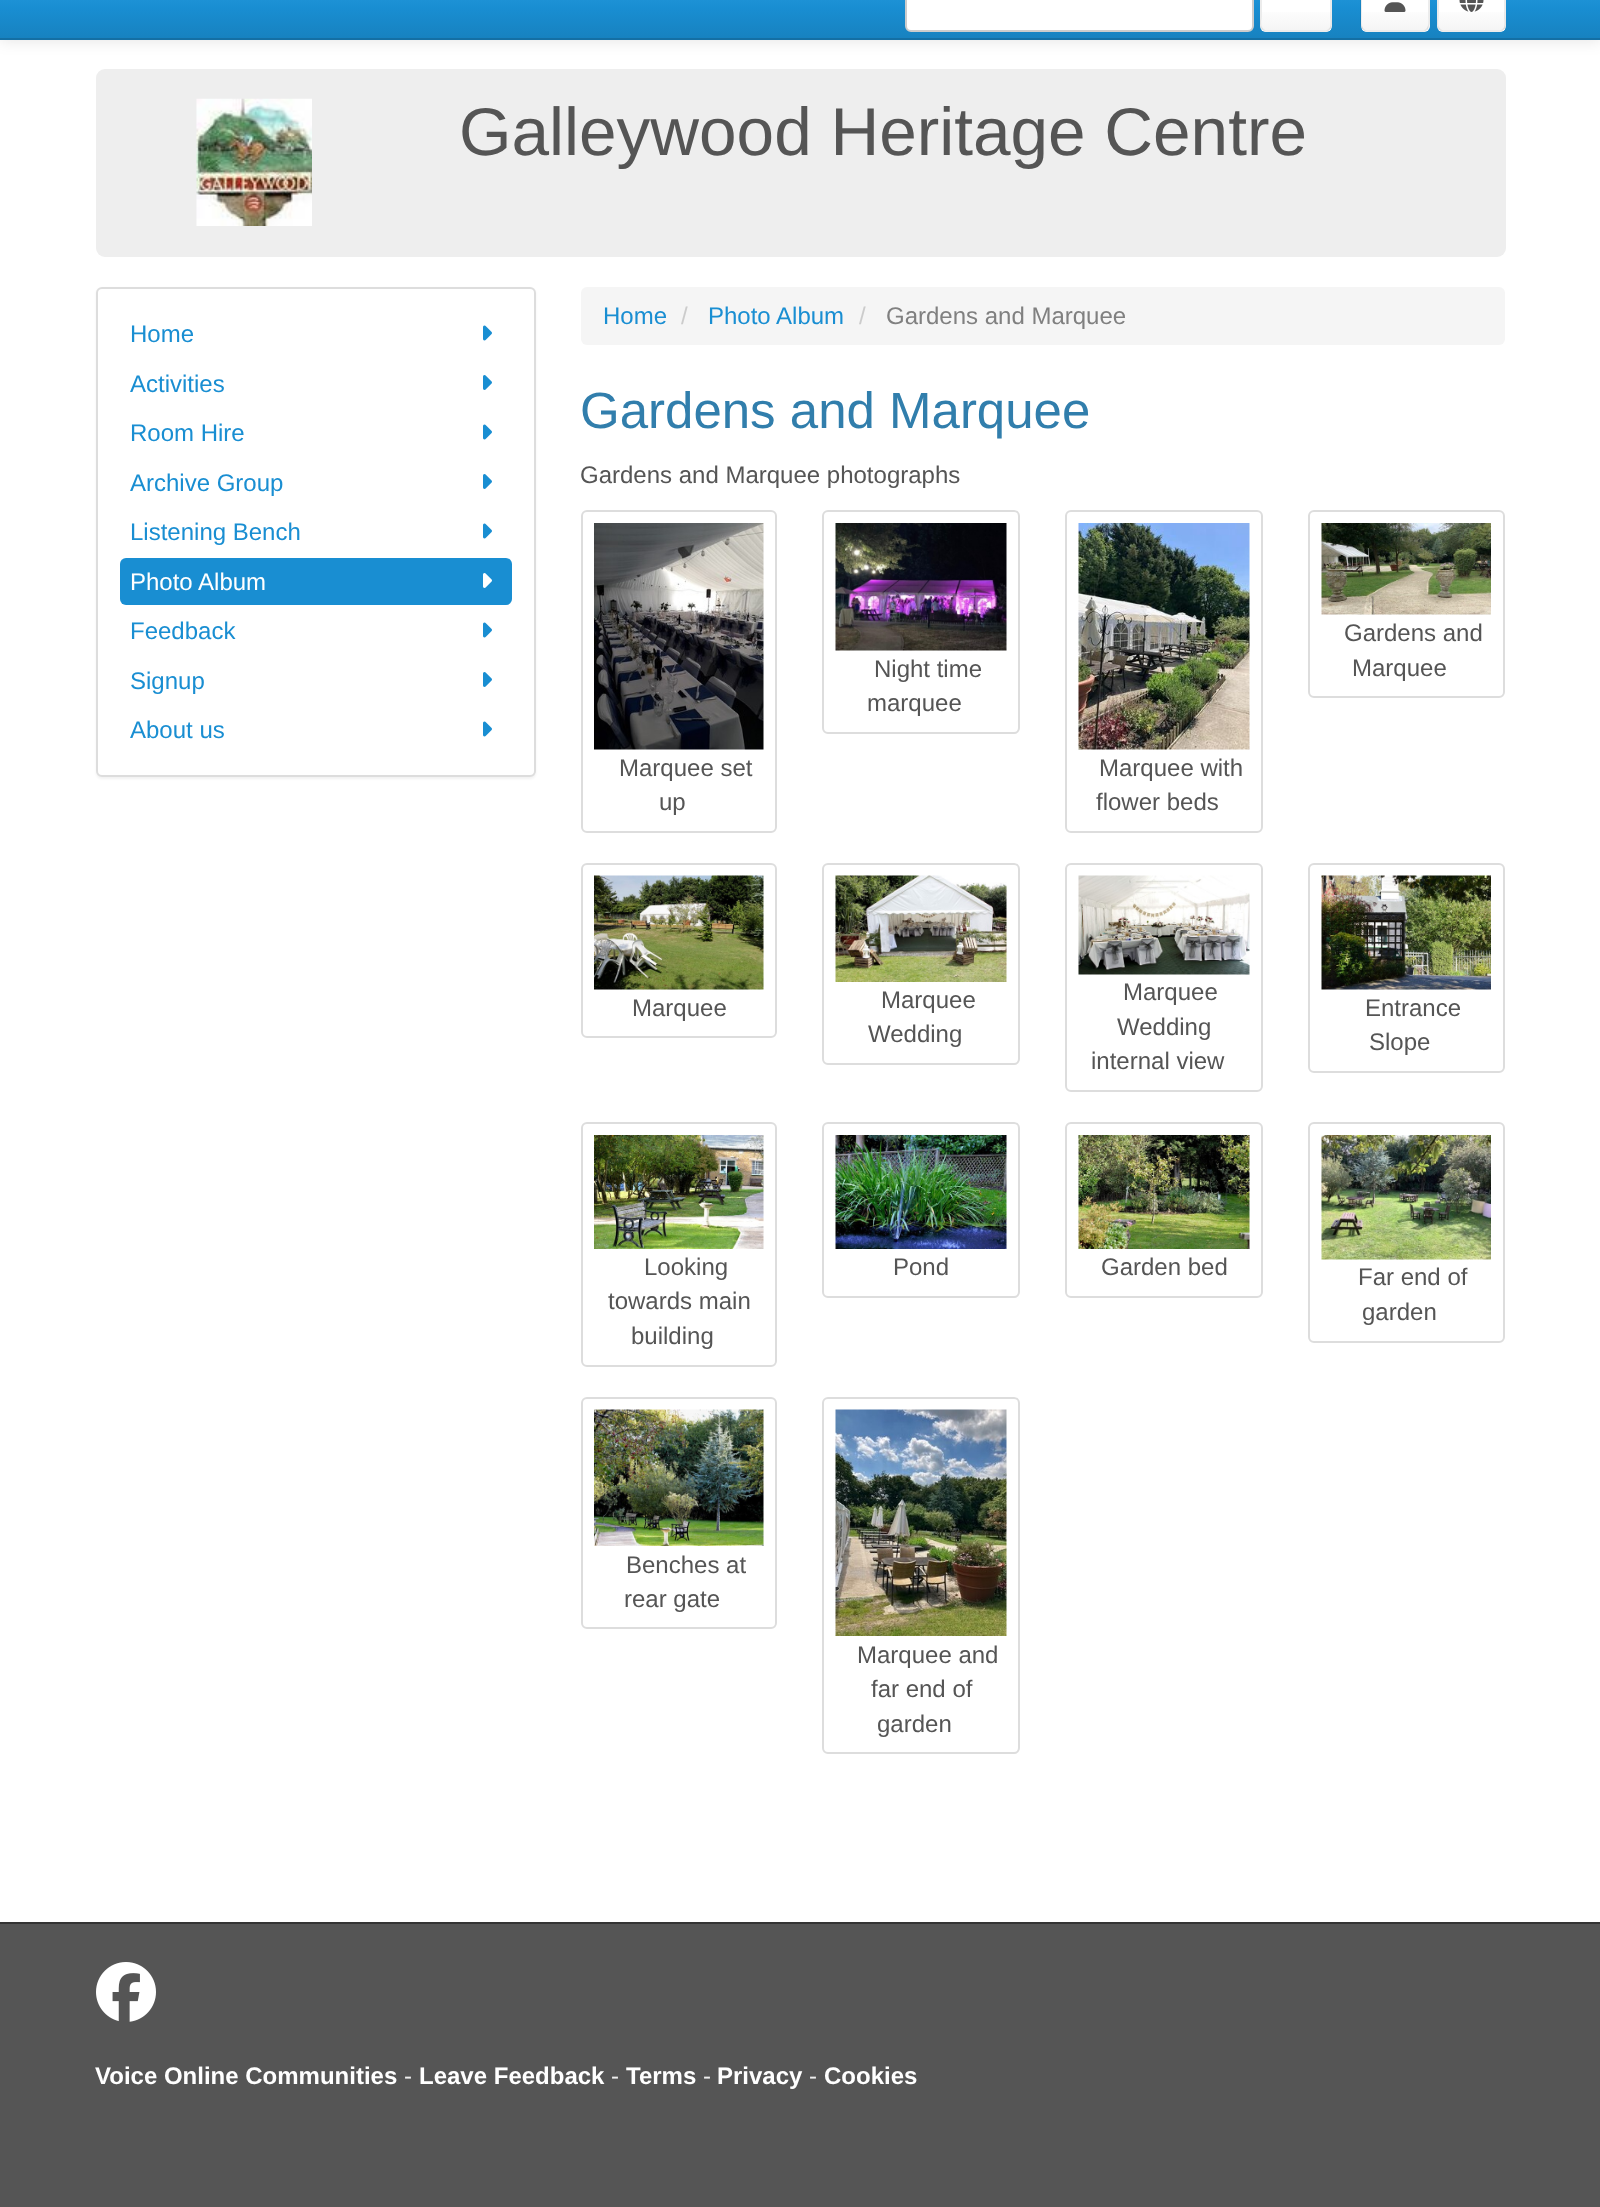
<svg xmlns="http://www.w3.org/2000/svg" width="1600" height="2207">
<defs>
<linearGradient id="g1" gradientUnits="userSpaceOnUse" x1="800" y1="-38" x2="800" y2="38"><stop offset="0" stop-color="#2ea2e6"/><stop offset="0.6" stop-color="#198ed2"/><stop offset="1" stop-color="#1782c0"/></linearGradient>
<linearGradient id="g2" gradientUnits="userSpaceOnUse" x1="1296" y1="-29" x2="1296" y2="30"><stop offset="0" stop-color="#fff"/><stop offset="0.6" stop-color="#fff"/><stop offset="1" stop-color="#f5f5f5"/></linearGradient>
<linearGradient id="g3" gradientUnits="userSpaceOnUse" x1="1395" y1="-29" x2="1395" y2="30"><stop offset="0" stop-color="#fff"/><stop offset="0.6" stop-color="#fff"/><stop offset="1" stop-color="#f5f5f5"/></linearGradient>
<linearGradient id="g4" gradientUnits="userSpaceOnUse" x1="1472" y1="-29" x2="1472" y2="30"><stop offset="0" stop-color="#fff"/><stop offset="0.6" stop-color="#fff"/><stop offset="1" stop-color="#f5f5f5"/></linearGradient>
</defs>
<rect width="100%" height="100%" fill="#fff"/>
<rect y="-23" width="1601" height="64" fill="#0000001a" filter="blur(7.5px)"/>
<rect width="1600" height="38" fill="url(#g1)"/>
<rect y="38" width="1600" height="2" fill="#146fa4"/>
<rect x="906" y="-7" width="347" height="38" rx="5" fill="#fff" stroke="#ccc" stroke-width="2"/>
<rect x="1260" y="-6" width="72" height="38" rx="6" fill="#fff"/>
<rect x="1262" y="12" width="69" height="18" fill="url(#g2)"/>
<path d="M1329.5 29c-1 1-2 2-3.5 2h-60c-1.5 0-2.5-1-3.5-2" fill="none" stroke="#e6e6e6" stroke-width="1.5"/>
<path d="M1262.5 29c-3-2.5-1.5-9-1.5-12v-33c0-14.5 0-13 15-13h40c15 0 15-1.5 15 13v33c0 3 1.5 9.5-1.5 12" fill="none" stroke="#0000001a" stroke-width="1.5"/>
<rect x="1361" y="-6" width="69" height="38" rx="6" fill="#fff"/>
<rect x="1362" y="12" width="66" height="18" fill="url(#g3)"/>
<path d="M1427 29c-1 1-2 2-3.5 2h-57c-1.5 0-2.5-1-3.5-2" fill="none" stroke="#e6e6e6" stroke-width="1.5"/>
<path d="M1363 29c-3-2.5-2-9-2-12v-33c0-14.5 0-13 15-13h38c15 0 15-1.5 15 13v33c0 3 1 9.5-2 12" fill="none" stroke="#0000001a" stroke-width="1.5"/>
<image x="1384" y="2" width="22" height="10" href="media/1.png"/>
<rect x="1437" y="-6" width="69" height="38" rx="6" fill="#fff"/>
<rect x="1439" y="12" width="66" height="18" fill="url(#g4)"/>
<path d="M1503.5 29c-1 1-2 2-3.5 2h-57c-1.5 0-2.5-1-3.5-2" fill="none" stroke="#e6e6e6" stroke-width="1.5"/>
<path d="M1439.5 29c-3-2.5-1.5-9-1.5-12v-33c0-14.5-.5-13 14.5-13h38c15 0 14.5-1.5 14.5 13v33c0 3 1.5 9.5-1.5 12" fill="none" stroke="#0000001a" stroke-width="1.5"/>
<image x="1459" y="0" width="25" height="12" href="media/2.png"/>
<rect x="96" y="69" width="1410" height="188" rx="9" fill="#eee"/>
<image x="196" y="98" width="116" height="128" href="media/3.png"/>
<text x="459" y="155" style="font-family:Liberation Sans;font-size:67.5px;fill:#555">Galleywood Heritage Centre</text>
<rect x="96" y="288" width="440" height="491" rx="6" fill="#0000000d" filter="blur(1px)"/>
<rect x="97" y="288" width="438" height="488" rx="5" fill="#fff" stroke="#ddd" stroke-width="2"/>
<text x="130" y="342" style="font-family:Liberation Sans;font-size:24px;fill:#198ed2">Home</text>
<image x="483" y="325" width="9" height="16" href="media/4.png"/>
<text x="130" y="392" style="font-family:Liberation Sans;font-size:24px;fill:#198ed2">Activities</text>
<image x="483" y="375" width="9" height="15" href="media/5.png"/>
<text x="130" y="441" style="font-family:Liberation Sans;font-size:24px;fill:#198ed2">Room Hire</text>
<image x="483" y="424" width="9" height="16" href="media/4.png"/>
<text x="130" y="491" style="font-family:Liberation Sans;font-size:24px;fill:#198ed2">Archive Group</text>
<image x="483" y="474" width="9" height="15" href="media/5.png"/>
<text x="130" y="540" style="font-family:Liberation Sans;font-size:24px;fill:#198ed2">Listening Bench</text>
<image x="483" y="523" width="9" height="16" href="media/4.png"/>
<rect x="120" y="558" width="392" height="47" rx="6" fill="#198ed2"/>
<text x="130" y="590" style="font-family:Liberation Sans;font-size:24px;fill:#fff">Photo Album</text>
<image x="483" y="573" width="9" height="15" href="media/6.png"/>
<text x="130" y="639" style="font-family:Liberation Sans;font-size:24px;fill:#198ed2">Feedback</text>
<image x="483" y="622" width="9" height="16" href="media/4.png"/>
<text x="130" y="689" style="font-family:Liberation Sans;font-size:24px;fill:#198ed2">Signup</text>
<image x="483" y="672" width="9" height="15" href="media/5.png"/>
<text x="130" y="738" style="font-family:Liberation Sans;font-size:24px;fill:#198ed2">About us</text>
<image x="483" y="721" width="9" height="16" href="media/4.png"/>
<rect x="581" y="287" width="924" height="58" rx="6" fill="#f5f5f5"/>
<text x="603" y="324" style="font-family:Liberation Sans;font-size:24px;fill:#198ed2">Home</text>
<text x="681" y="324" style="font-family:Liberation Sans;font-size:24px;fill:#ccc">/</text>
<text x="708" y="324" style="font-family:Liberation Sans;font-size:24px;fill:#198ed2">Photo Album</text>
<text x="859" y="324" style="font-family:Liberation Sans;font-size:24px;fill:#ccc">/</text>
<text x="886" y="324" style="font-family:Liberation Sans;font-size:24px;fill:#808080">Gardens and Marquee</text>
<text x="580" y="428" style="font-family:Liberation Sans;font-size:51px;fill:#317eac">Gardens and Marquee</text>
<text x="580" y="483" style="font-family:Liberation Sans;font-size:24px;fill:#555">Gardens and Marquee photographs</text>
<rect x="1309" y="511" width="195" height="186" rx="5" fill="none" stroke="#ddd" stroke-width="2"/>
<image x="1321" y="523" width="170" height="92" href="media/7.png"/>
<text x="1344" y="641" style="font-family:Liberation Sans;font-size:24px;fill:#555">Gardens and</text>
<text x="1352" y="676" style="font-family:Liberation Sans;font-size:24px;fill:#555">Marquee</text>
<rect x="823" y="511" width="196" height="222" rx="5" fill="none" stroke="#ddd" stroke-width="2"/>
<image x="835" y="523" width="172" height="128" href="media/8.png"/>
<text x="874" y="677" style="font-family:Liberation Sans;font-size:24px;fill:#555">Night time</text>
<text x="867" y="711" style="font-family:Liberation Sans;font-size:24px;fill:#555">marquee</text>
<rect x="582" y="511" width="194" height="321" rx="5" fill="none" stroke="#ddd" stroke-width="2"/>
<image x="594" y="523" width="170" height="227" href="media/9.png"/>
<text x="619" y="776" style="font-family:Liberation Sans;font-size:24px;fill:#555">Marquee set</text>
<text x="659" y="810" style="font-family:Liberation Sans;font-size:24px;fill:#555">up</text>
<rect x="1066" y="511" width="196" height="321" rx="5" fill="none" stroke="#ddd" stroke-width="2"/>
<image x="1078" y="523" width="172" height="227" href="media/10.png"/>
<text x="1099" y="776" style="font-family:Liberation Sans;font-size:24px;fill:#555">Marquee with</text>
<text x="1096" y="810" style="font-family:Liberation Sans;font-size:24px;fill:#555">flower beds</text>
<rect x="582" y="864" width="194" height="173" rx="5" fill="none" stroke="#ddd" stroke-width="2"/>
<image x="594" y="875" width="170" height="115" href="media/11.png"/>
<text x="632" y="1016" style="font-family:Liberation Sans;font-size:24px;fill:#555">Marquee</text>
<rect x="823" y="864" width="196" height="200" rx="5" fill="none" stroke="#ddd" stroke-width="2"/>
<image x="835" y="875" width="172" height="107" href="media/12.png"/>
<text x="881" y="1008" style="font-family:Liberation Sans;font-size:24px;fill:#555">Marquee</text>
<text x="868" y="1042" style="font-family:Liberation Sans;font-size:24px;fill:#555">Wedding</text>
<rect x="1066" y="864" width="196" height="227" rx="5" fill="none" stroke="#ddd" stroke-width="2"/>
<image x="1078" y="875" width="172" height="100" href="media/13.png"/>
<text x="1123" y="1000" style="font-family:Liberation Sans;font-size:24px;fill:#555">Marquee</text>
<text x="1117" y="1035" style="font-family:Liberation Sans;font-size:24px;fill:#555">Wedding</text>
<text x="1091" y="1069" style="font-family:Liberation Sans;font-size:24px;fill:#555">internal view</text>
<rect x="1309" y="864" width="195" height="208" rx="5" fill="none" stroke="#ddd" stroke-width="2"/>
<image x="1321" y="875" width="170" height="115" href="media/14.png"/>
<text x="1365" y="1016" style="font-family:Liberation Sans;font-size:24px;fill:#555">Entrance</text>
<text x="1369" y="1050" style="font-family:Liberation Sans;font-size:24px;fill:#555">Slope</text>
<rect x="582" y="1123" width="194" height="243" rx="5" fill="none" stroke="#ddd" stroke-width="2"/>
<image x="594" y="1135" width="170" height="114" href="media/15.png"/>
<text x="644" y="1275" style="font-family:Liberation Sans;font-size:24px;fill:#555">Looking</text>
<text x="608" y="1309" style="font-family:Liberation Sans;font-size:24px;fill:#555">towards main</text>
<text x="631" y="1344" style="font-family:Liberation Sans;font-size:24px;fill:#555">building</text>
<rect x="823" y="1123" width="196" height="174" rx="5" fill="none" stroke="#ddd" stroke-width="2"/>
<image x="835" y="1135" width="172" height="114" href="media/16.png"/>
<text x="893" y="1275" style="font-family:Liberation Sans;font-size:24px;fill:#555">Pond</text>
<rect x="1066" y="1123" width="196" height="174" rx="5" fill="none" stroke="#ddd" stroke-width="2"/>
<image x="1078" y="1135" width="172" height="114" href="media/17.png"/>
<text x="1101" y="1275" style="font-family:Liberation Sans;font-size:24px;fill:#555">Garden bed</text>
<rect x="1309" y="1123" width="195" height="219" rx="5" fill="none" stroke="#ddd" stroke-width="2"/>
<image x="1321" y="1135" width="170" height="125" href="media/18.png"/>
<text x="1358" y="1285" style="font-family:Liberation Sans;font-size:24px;fill:#555">Far end of</text>
<text x="1362" y="1320" style="font-family:Liberation Sans;font-size:24px;fill:#555">garden</text>
<rect x="582" y="1398" width="194" height="230" rx="5" fill="none" stroke="#ddd" stroke-width="2"/>
<image x="594" y="1409" width="170" height="137" href="media/19.png"/>
<text x="626" y="1573" style="font-family:Liberation Sans;font-size:24px;fill:#555">Benches at</text>
<text x="624" y="1607" style="font-family:Liberation Sans;font-size:24px;fill:#555">rear gate</text>
<rect x="823" y="1398" width="196" height="355" rx="5" fill="none" stroke="#ddd" stroke-width="2"/>
<image x="835" y="1409" width="172" height="227" href="media/20.png"/>
<text x="857" y="1663" style="font-family:Liberation Sans;font-size:24px;fill:#555">Marquee and</text>
<text x="871" y="1697" style="font-family:Liberation Sans;font-size:24px;fill:#555">far end of</text>
<text x="877" y="1732" style="font-family:Liberation Sans;font-size:24px;fill:#555">garden</text>
<rect y="1924" width="1600" height="283" fill="#555"/>
<rect y="1922" width="1600" height="2" fill="#333"/>
<image x="96" y="1962" width="60" height="60" href="media/21.png"/>
<text x="95" y="2084" style="font-family:Liberation Sans;font-size:24px;font-weight:bold;fill:#fff">Voice Online Communities</text>
<text x="404" y="2084" style="font-family:Liberation Sans;font-size:24px;fill:#eee">-</text>
<text x="419" y="2084" style="font-family:Liberation Sans;font-size:24px;font-weight:bold;fill:#fff">Leave Feedback</text>
<text x="611" y="2084" style="font-family:Liberation Sans;font-size:24px;fill:#eee">-</text>
<text x="626" y="2084" style="font-family:Liberation Sans;font-size:24px;font-weight:bold;fill:#fff">Terms</text>
<text x="703" y="2084" style="font-family:Liberation Sans;font-size:24px;fill:#eee">-</text>
<text x="717" y="2084" style="font-family:Liberation Sans;font-size:24px;font-weight:bold;fill:#fff">Privacy</text>
<text x="809" y="2084" style="font-family:Liberation Sans;font-size:24px;fill:#eee">-</text>
<text x="824" y="2084" style="font-family:Liberation Sans;font-size:24px;font-weight:bold;fill:#fff">Cookies</text>
</svg>
